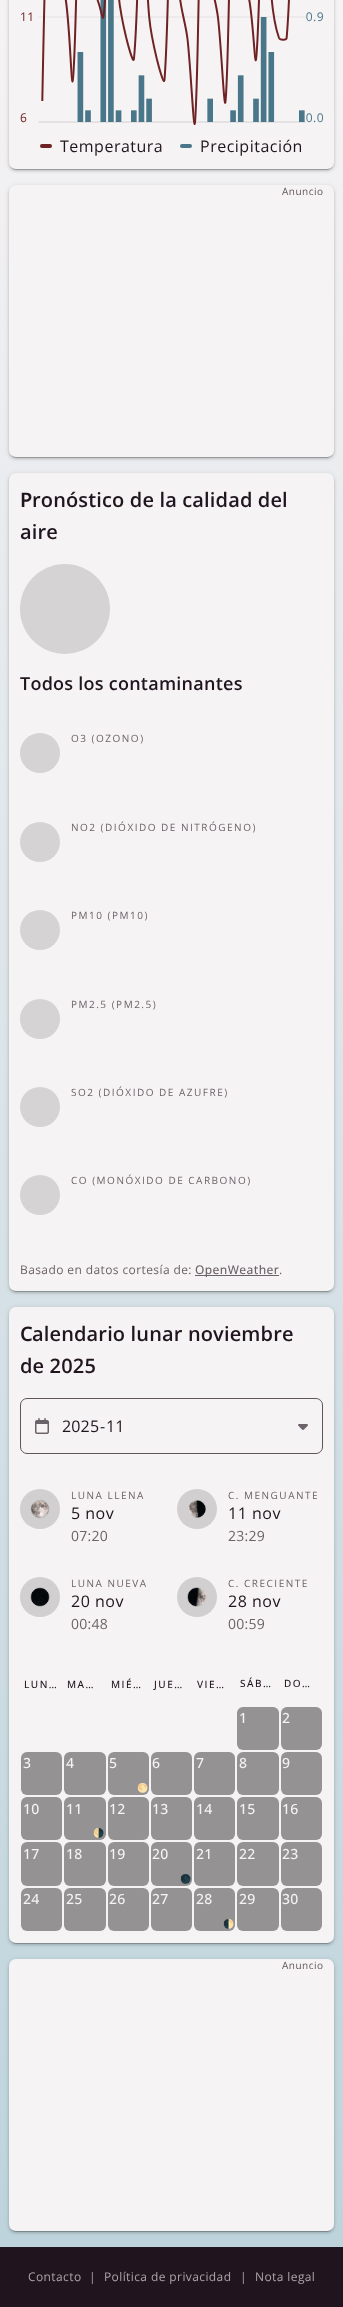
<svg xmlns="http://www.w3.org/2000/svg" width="343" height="2307">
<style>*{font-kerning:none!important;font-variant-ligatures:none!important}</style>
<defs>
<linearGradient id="g1" gradientUnits="userSpaceOnUse" x1="171" y1="0" x2="172" y2="2307"><stop offset="0" stop-color="#f6f3f4"/><stop offset="1" stop-color="#bcd3db"/></linearGradient>
<clipPath id="clip1"><rect x="136" y="1783" width="12" height="12"/></clipPath>
<clipPath id="clip2"><rect x="93" y="1828" width="12" height="12"/></clipPath>
<clipPath id="clip3"><rect x="180" y="1873" width="12" height="12"/></clipPath>
</defs>
<rect width="100%" height="100%" fill="#fff"/>
<rect width="343" height="2247" fill="url(#g1)"/>
<rect x="9" y="-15" width="325" height="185" rx="7" fill="#0000001f" filter="blur(2.5px)"/>
<rect x="9" y="-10" width="325" height="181" rx="7" fill="#00000024" filter="blur(1px)"/>
<rect x="11" y="-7" width="321" height="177" rx="5" fill="#00000033" filter="blur(0.5px)"/>
<rect x="9" y="-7" width="325" height="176" rx="7" fill="#f6f3f4"/>
<image x="20" y="0" width="303" height="125" href="media/1.png"/>
<rect x="40" y="144" width="12" height="4" rx="2" fill="#6f2223"/>
<text x="60" y="152" style="font-family:Open Sans;font-size:16px;letter-spacing:0.5px;fill:#20151e">Temperatura</text>
<rect x="180" y="144" width="12" height="4" rx="2" fill="#497688"/>
<text x="200" y="152" style="font-family:Open Sans;font-size:16px;letter-spacing:0.5px;fill:#20151e">Precipitación</text>
<rect x="9" y="186" width="325" height="272" rx="7" fill="#0000001f" filter="blur(2.5px)"/>
<rect x="9" y="187" width="325" height="272" rx="7" fill="#00000024" filter="blur(1px)"/>
<rect x="11" y="190" width="321" height="268" rx="5" fill="#00000033" filter="blur(0.5px)"/>
<rect x="9" y="185" width="325" height="272" rx="7" fill="#f6f3f4"/>
<text x="282" y="195" style="font-family:Open Sans;font-size:10px;letter-spacing:0.5px;fill:#5f565d">Anuncio</text>
<rect x="9" y="474" width="325" height="818" rx="7" fill="#0000001f" filter="blur(2.5px)"/>
<rect x="9" y="475" width="325" height="818" rx="7" fill="#00000024" filter="blur(1px)"/>
<rect x="11" y="478" width="321" height="814" rx="5" fill="#00000033" filter="blur(0.5px)"/>
<rect x="9" y="473" width="325" height="818" rx="7" fill="#f6f3f4"/>
<text x="20" y="507" style="font-family:Noto Sans;font-size:20px;font-weight:600;letter-spacing:0.15px;fill:#20151e">P</text>
<text x="32" y="507" style="font-family:Open Sans;font-size:20px;font-weight:600;letter-spacing:0.15px;fill:#20151e">ronóstico de la calidad del</text>
<text x="20" y="539" style="font-family:Open Sans;font-size:20px;font-weight:600;letter-spacing:0.15px;fill:#20151e">aire</text>
<circle cx="65" cy="609" r="45" fill="#d5d3d4"/>
<text x="20" y="690" style="font-family:Open Sans;font-size:18px;font-weight:600;letter-spacing:0.25px;fill:#20151e">Todos los contaminantes</text>
<circle cx="40" cy="753" r="20" fill="#d5d3d4"/>
<text x="71" y="742" style="font-family:Open Sans;font-size:10px;letter-spacing:1.5px;fill:#6b6369">O3 (OZONO)</text>
<circle cx="40" cy="842" r="20" fill="#d5d3d4"/>
<text x="71" y="831" style="font-family:Open Sans;font-size:10px;letter-spacing:1.5px;fill:#6b6369">NO2 (DIÓXIDO DE NITRÓGENO)</text>
<circle cx="40" cy="930" r="20" fill="#d5d3d4"/>
<text x="71" y="919" style="font-family:Open Sans;font-size:10px;letter-spacing:1.5px;fill:#6b6369">PM10 (PM10)</text>
<circle cx="40" cy="1019" r="20" fill="#d5d3d4"/>
<text x="71" y="1008" style="font-family:Open Sans;font-size:10px;letter-spacing:1.5px;fill:#6b6369">PM2.5 (PM2.5)</text>
<circle cx="40" cy="1107" r="20" fill="#d5d3d4"/>
<text x="71" y="1096" style="font-family:Open Sans;font-size:10px;letter-spacing:1.5px;fill:#6b6369">SO2 (DIÓXIDO DE AZUFRE)</text>
<circle cx="40" cy="1195" r="20" fill="#d5d3d4"/>
<text x="71" y="1184" style="font-family:Open Sans;font-size:10px;letter-spacing:1.5px;fill:#6b6369">CO (MONÓXIDO DE CARBONO)</text>
<text x="20" y="1274" style="font-family:Open Sans;font-size:12px;letter-spacing:0.4px;fill:#6b6369">Basado en datos cortesía de:</text>
<rect x="195" y="1275" width="84" height="1" fill="#6b6369"/>
<text x="195" y="1274" style="font-family:Open Sans;font-size:12px;font-weight:500;letter-spacing:0.4px;fill:#6b6369">OpenWeather</text>
<text x="279" y="1274" style="font-family:Open Sans;font-size:12px;letter-spacing:0.4px;fill:#6b6369">.</text>
<rect x="9" y="1308" width="325" height="636" rx="7" fill="#0000001f" filter="blur(2.5px)"/>
<rect x="9" y="1309" width="325" height="636" rx="7" fill="#00000024" filter="blur(1px)"/>
<rect x="11" y="1312" width="321" height="632" rx="5" fill="#00000033" filter="blur(0.5px)"/>
<rect x="9" y="1307" width="325" height="636" rx="7" fill="#f6f3f4"/>
<text x="20" y="1341" style="font-family:Noto Sans;font-size:20px;font-weight:600;letter-spacing:0.15px;fill:#20151e">C</text>
<text x="32" y="1341" style="font-family:Open Sans;font-size:20px;font-weight:600;letter-spacing:0.15px;fill:#20151e">alendario lunar noviembre</text>
<text x="20" y="1373" style="font-family:Open Sans;font-size:20px;font-weight:600;letter-spacing:0.15px;fill:#20151e">de 2025</text>
<rect x="20.5" y="1398.5" width="302" height="55" rx="6.5" fill="none" stroke="#5f565d"/>
<image x="35" y="1418" width="14" height="16" href="media/2.png"/>
<text x="62" y="1432" style="font-family:Open Sans;font-size:16px;letter-spacing:0.15px;fill:#20151e">2025</text>
<text x="100" y="1432" style="font-family:Open Sans;font-size:16px;letter-spacing:0.15px;fill:#20151e">-</text>
<text x="106" y="1432" style="font-family:Open Sans;font-size:16px;letter-spacing:0.15px;fill:#20151e">11</text>
<image x="298" y="1424" width="10" height="6" href="media/3.png"/>
<circle cx="40" cy="1509" r="20" fill="#d1cfcf"/>
<image x="30" y="1499" width="20" height="20" href="media/4.png"/>
<text x="71" y="1499" style="font-family:Open Sans;font-size:10px;letter-spacing:1.5px;fill:#6b6369">LUNA LLENA</text>
<text x="71" y="1519" style="font-family:Open Sans;font-size:16px;letter-spacing:0.5px;fill:#20151e">5 nov</text>
<text x="71" y="1541" style="font-family:Open Sans;font-size:14px;letter-spacing:0.25px;fill:#6b6369">07:20</text>
<circle cx="197" cy="1509" r="20" fill="#d1cfcf"/>
<image x="188" y="1500" width="18" height="18" href="media/5.png"/>
<text x="228" y="1499" style="font-family:Open Sans;font-size:10px;letter-spacing:1.5px;fill:#6b6369">C. MENGUANTE</text>
<text x="228" y="1519" style="font-family:Open Sans;font-size:16px;letter-spacing:0.5px;fill:#20151e">11 nov</text>
<text x="228" y="1541" style="font-family:Open Sans;font-size:14px;letter-spacing:0.25px;fill:#6b6369">23:29</text>
<circle cx="40" cy="1597" r="20" fill="#d1cfcf"/>
<image x="30" y="1587" width="20" height="20" href="media/6.png"/>
<text x="71" y="1587" style="font-family:Open Sans;font-size:10px;letter-spacing:1.5px;fill:#6b6369">LUNA NUEVA</text>
<text x="71" y="1607" style="font-family:Open Sans;font-size:16px;letter-spacing:0.5px;fill:#20151e">20 nov</text>
<text x="71" y="1629" style="font-family:Open Sans;font-size:14px;letter-spacing:0.25px;fill:#6b6369">00:48</text>
<circle cx="197" cy="1597" r="20" fill="#d1cfcf"/>
<image x="187" y="1587" width="20" height="20" href="media/7.png"/>
<text x="228" y="1587" style="font-family:Open Sans;font-size:10px;letter-spacing:1.5px;fill:#6b6369">C. CRECIENTE</text>
<text x="228" y="1607" style="font-family:Open Sans;font-size:16px;letter-spacing:0.5px;fill:#20151e">28 nov</text>
<text x="228" y="1629" style="font-family:Open Sans;font-size:14px;letter-spacing:0.25px;fill:#6b6369">00:59</text>
<text x="24" y="1688" style="font-family:Open Sans;font-size:10px;font-weight:500;letter-spacing:1.5px;fill:#20151e">LUN…</text>
<text x="67" y="1688" style="font-family:Open Sans;font-size:10px;font-weight:500;letter-spacing:1.5px;fill:#20151e">MA…</text>
<text x="111" y="1688" style="font-family:Open Sans;font-size:10px;font-weight:500;letter-spacing:1.5px;fill:#20151e">MIÉ…</text>
<text x="154" y="1688" style="font-family:Open Sans;font-size:10px;font-weight:500;letter-spacing:1.5px;fill:#20151e">JUE…</text>
<text x="197" y="1688" style="font-family:Open Sans;font-size:10px;font-weight:500;letter-spacing:1.5px;fill:#20151e">VIE…</text>
<text x="240" y="1687" style="font-family:Open Sans;font-size:10px;font-weight:500;letter-spacing:1.5px;fill:#20151e">SÁB…</text>
<text x="284" y="1687" style="font-family:Open Sans;font-size:10px;font-weight:500;letter-spacing:1.5px;fill:#20151e">DO…</text>
<rect x="237" y="1707" width="42" height="43" rx="6" fill="#949292"/>
<text x="239" y="1723" style="font-family:Open Sans;font-size:14px;font-weight:500;letter-spacing:0.25px;fill:#f6f3f4">1</text>
<rect x="281" y="1707" width="41" height="43" rx="6" fill="#949292"/>
<text x="282" y="1723" style="font-family:Open Sans;font-size:14px;font-weight:500;letter-spacing:0.25px;fill:#f6f3f4">2</text>
<rect x="21" y="1752" width="41" height="43" rx="6" fill="#949292"/>
<text x="23" y="1768" style="font-family:Open Sans;font-size:14px;font-weight:500;letter-spacing:0.25px;fill:#f6f3f4">3</text>
<rect x="64" y="1752" width="42" height="43" rx="6" fill="#949292"/>
<text x="66" y="1768" style="font-family:Open Sans;font-size:14px;font-weight:500;letter-spacing:0.25px;fill:#f6f3f4">4</text>
<rect x="108" y="1752" width="41" height="43" rx="6" fill="#949292"/>
<text x="109" y="1768" style="font-family:Open Sans;font-size:14px;font-weight:500;letter-spacing:0.25px;fill:#f6f3f4">5</text>
<g clip-path="url(#clip1)">
<text x="137" y="1791" style="font-family:Noto Color Emoji;font-size:9px;letter-spacing:0.25px;fill:#f6f3f4">🌕</text>
</g>
<rect x="151" y="1752" width="41" height="43" rx="6" fill="#949292"/>
<text x="152" y="1768" style="font-family:Open Sans;font-size:14px;font-weight:500;letter-spacing:0.25px;fill:#f6f3f4">6</text>
<rect x="194" y="1752" width="41" height="43" rx="6" fill="#949292"/>
<text x="196" y="1768" style="font-family:Open Sans;font-size:14px;font-weight:500;letter-spacing:0.25px;fill:#f6f3f4">7</text>
<rect x="237" y="1752" width="42" height="43" rx="6" fill="#949292"/>
<text x="239" y="1768" style="font-family:Open Sans;font-size:14px;font-weight:500;letter-spacing:0.25px;fill:#f6f3f4">8</text>
<rect x="281" y="1752" width="41" height="43" rx="6" fill="#949292"/>
<text x="282" y="1768" style="font-family:Open Sans;font-size:14px;font-weight:500;letter-spacing:0.25px;fill:#f6f3f4">9</text>
<rect x="21" y="1797" width="41" height="43" rx="6" fill="#949292"/>
<text x="23" y="1814" style="font-family:Open Sans;font-size:14px;font-weight:500;letter-spacing:0.25px;fill:#f6f3f4">10</text>
<rect x="64" y="1797" width="42" height="43" rx="6" fill="#949292"/>
<text x="66" y="1814" style="font-family:Open Sans;font-size:14px;font-weight:500;letter-spacing:0.25px;fill:#f6f3f4">11</text>
<g clip-path="url(#clip2)">
<text x="93" y="1836" style="font-family:Noto Color Emoji;font-size:9px;letter-spacing:0.25px;fill:#f6f3f4">🌗</text>
</g>
<rect x="108" y="1797" width="41" height="43" rx="6" fill="#949292"/>
<text x="109" y="1814" style="font-family:Open Sans;font-size:14px;font-weight:500;letter-spacing:0.25px;fill:#f6f3f4">12</text>
<rect x="151" y="1797" width="41" height="43" rx="6" fill="#949292"/>
<text x="152" y="1814" style="font-family:Open Sans;font-size:14px;font-weight:500;letter-spacing:0.25px;fill:#f6f3f4">13</text>
<rect x="194" y="1797" width="41" height="43" rx="6" fill="#949292"/>
<text x="196" y="1814" style="font-family:Open Sans;font-size:14px;font-weight:500;letter-spacing:0.25px;fill:#f6f3f4">14</text>
<rect x="237" y="1797" width="42" height="43" rx="6" fill="#949292"/>
<text x="239" y="1814" style="font-family:Open Sans;font-size:14px;font-weight:500;letter-spacing:0.25px;fill:#f6f3f4">15</text>
<rect x="281" y="1797" width="41" height="43" rx="6" fill="#949292"/>
<text x="282" y="1814" style="font-family:Open Sans;font-size:14px;font-weight:500;letter-spacing:0.25px;fill:#f6f3f4">16</text>
<rect x="21" y="1842" width="41" height="44" rx="6" fill="#949292"/>
<text x="23" y="1859" style="font-family:Open Sans;font-size:14px;font-weight:500;letter-spacing:0.25px;fill:#f6f3f4">17</text>
<rect x="64" y="1842" width="42" height="44" rx="6" fill="#949292"/>
<text x="66" y="1859" style="font-family:Open Sans;font-size:14px;font-weight:500;letter-spacing:0.25px;fill:#f6f3f4">18</text>
<rect x="108" y="1842" width="41" height="44" rx="6" fill="#949292"/>
<text x="109" y="1859" style="font-family:Open Sans;font-size:14px;font-weight:500;letter-spacing:0.25px;fill:#f6f3f4">19</text>
<rect x="151" y="1842" width="41" height="44" rx="6" fill="#949292"/>
<text x="152" y="1859" style="font-family:Open Sans;font-size:14px;font-weight:500;letter-spacing:0.25px;fill:#f6f3f4">20</text>
<g clip-path="url(#clip3)">
<text x="180" y="1882" style="font-family:Noto Color Emoji;font-size:9px;letter-spacing:0.25px;fill:#f6f3f4">🌑</text>
</g>
<rect x="194" y="1842" width="41" height="44" rx="6" fill="#949292"/>
<text x="196" y="1859" style="font-family:Open Sans;font-size:14px;font-weight:500;letter-spacing:0.25px;fill:#f6f3f4">21</text>
<rect x="237" y="1842" width="42" height="44" rx="6" fill="#949292"/>
<text x="239" y="1859" style="font-family:Open Sans;font-size:14px;font-weight:500;letter-spacing:0.25px;fill:#f6f3f4">22</text>
<rect x="281" y="1842" width="41" height="44" rx="6" fill="#949292"/>
<text x="282" y="1859" style="font-family:Open Sans;font-size:14px;font-weight:500;letter-spacing:0.25px;fill:#f6f3f4">23</text>
<rect x="21" y="1888" width="41" height="43" rx="6" fill="#949292"/>
<text x="23" y="1904" style="font-family:Open Sans;font-size:14px;font-weight:500;letter-spacing:0.25px;fill:#f6f3f4">24</text>
<rect x="64" y="1888" width="42" height="43" rx="6" fill="#949292"/>
<text x="66" y="1904" style="font-family:Open Sans;font-size:14px;font-weight:500;letter-spacing:0.25px;fill:#f6f3f4">25</text>
<rect x="108" y="1888" width="41" height="43" rx="6" fill="#949292"/>
<text x="109" y="1904" style="font-family:Open Sans;font-size:14px;font-weight:500;letter-spacing:0.25px;fill:#f6f3f4">26</text>
<rect x="151" y="1888" width="41" height="43" rx="6" fill="#949292"/>
<text x="152" y="1904" style="font-family:Open Sans;font-size:14px;font-weight:500;letter-spacing:0.25px;fill:#f6f3f4">27</text>
<rect x="194" y="1888" width="41" height="43" rx="6" fill="#949292"/>
<text x="196" y="1904" style="font-family:Open Sans;font-size:14px;font-weight:500;letter-spacing:0.25px;fill:#f6f3f4">28</text>
<text x="223" y="1927" style="font-family:Noto Color Emoji;font-size:9px;letter-spacing:0.25px;fill:#f6f3f4">🌓</text>
<rect x="237" y="1888" width="42" height="43" rx="6" fill="#949292"/>
<text x="239" y="1904" style="font-family:Open Sans;font-size:14px;font-weight:500;letter-spacing:0.25px;fill:#f6f3f4">29</text>
<rect x="281" y="1888" width="41" height="43" rx="6" fill="#949292"/>
<text x="282" y="1904" style="font-family:Open Sans;font-size:14px;font-weight:500;letter-spacing:0.25px;fill:#f6f3f4">30</text>
<rect x="9" y="1960" width="325" height="272" rx="7" fill="#0000001f" filter="blur(2.5px)"/>
<rect x="9" y="1961" width="325" height="272" rx="7" fill="#00000024" filter="blur(1px)"/>
<rect x="11" y="1964" width="321" height="268" rx="5" fill="#00000033" filter="blur(0.5px)"/>
<rect x="9" y="1959" width="325" height="272" rx="7" fill="#f6f3f4"/>
<text x="282" y="1969" style="font-family:Open Sans;font-size:10px;letter-spacing:0.5px;fill:#5f565d">Anuncio</text>
<rect y="2247" width="343" height="60" fill="#20151e"/>
<text x="28" y="2281" style="font-family:Open Sans;font-size:12px;letter-spacing:0.4px;fill:#aba5a9">Contacto</text>
<text x="89" y="2281" style="font-family:Open Sans;font-size:12px;letter-spacing:0.4px;fill:#aba5a9">|</text>
<text x="104" y="2281" style="font-family:Open Sans;font-size:12px;letter-spacing:0.4px;fill:#aba5a9">Política de privacidad</text>
<text x="240" y="2281" style="font-family:Open Sans;font-size:12px;letter-spacing:0.4px;fill:#aba5a9">|</text>
<text x="255" y="2281" style="font-family:Open Sans;font-size:12px;letter-spacing:0.4px;fill:#aba5a9">Nota legal</text>
</svg>
